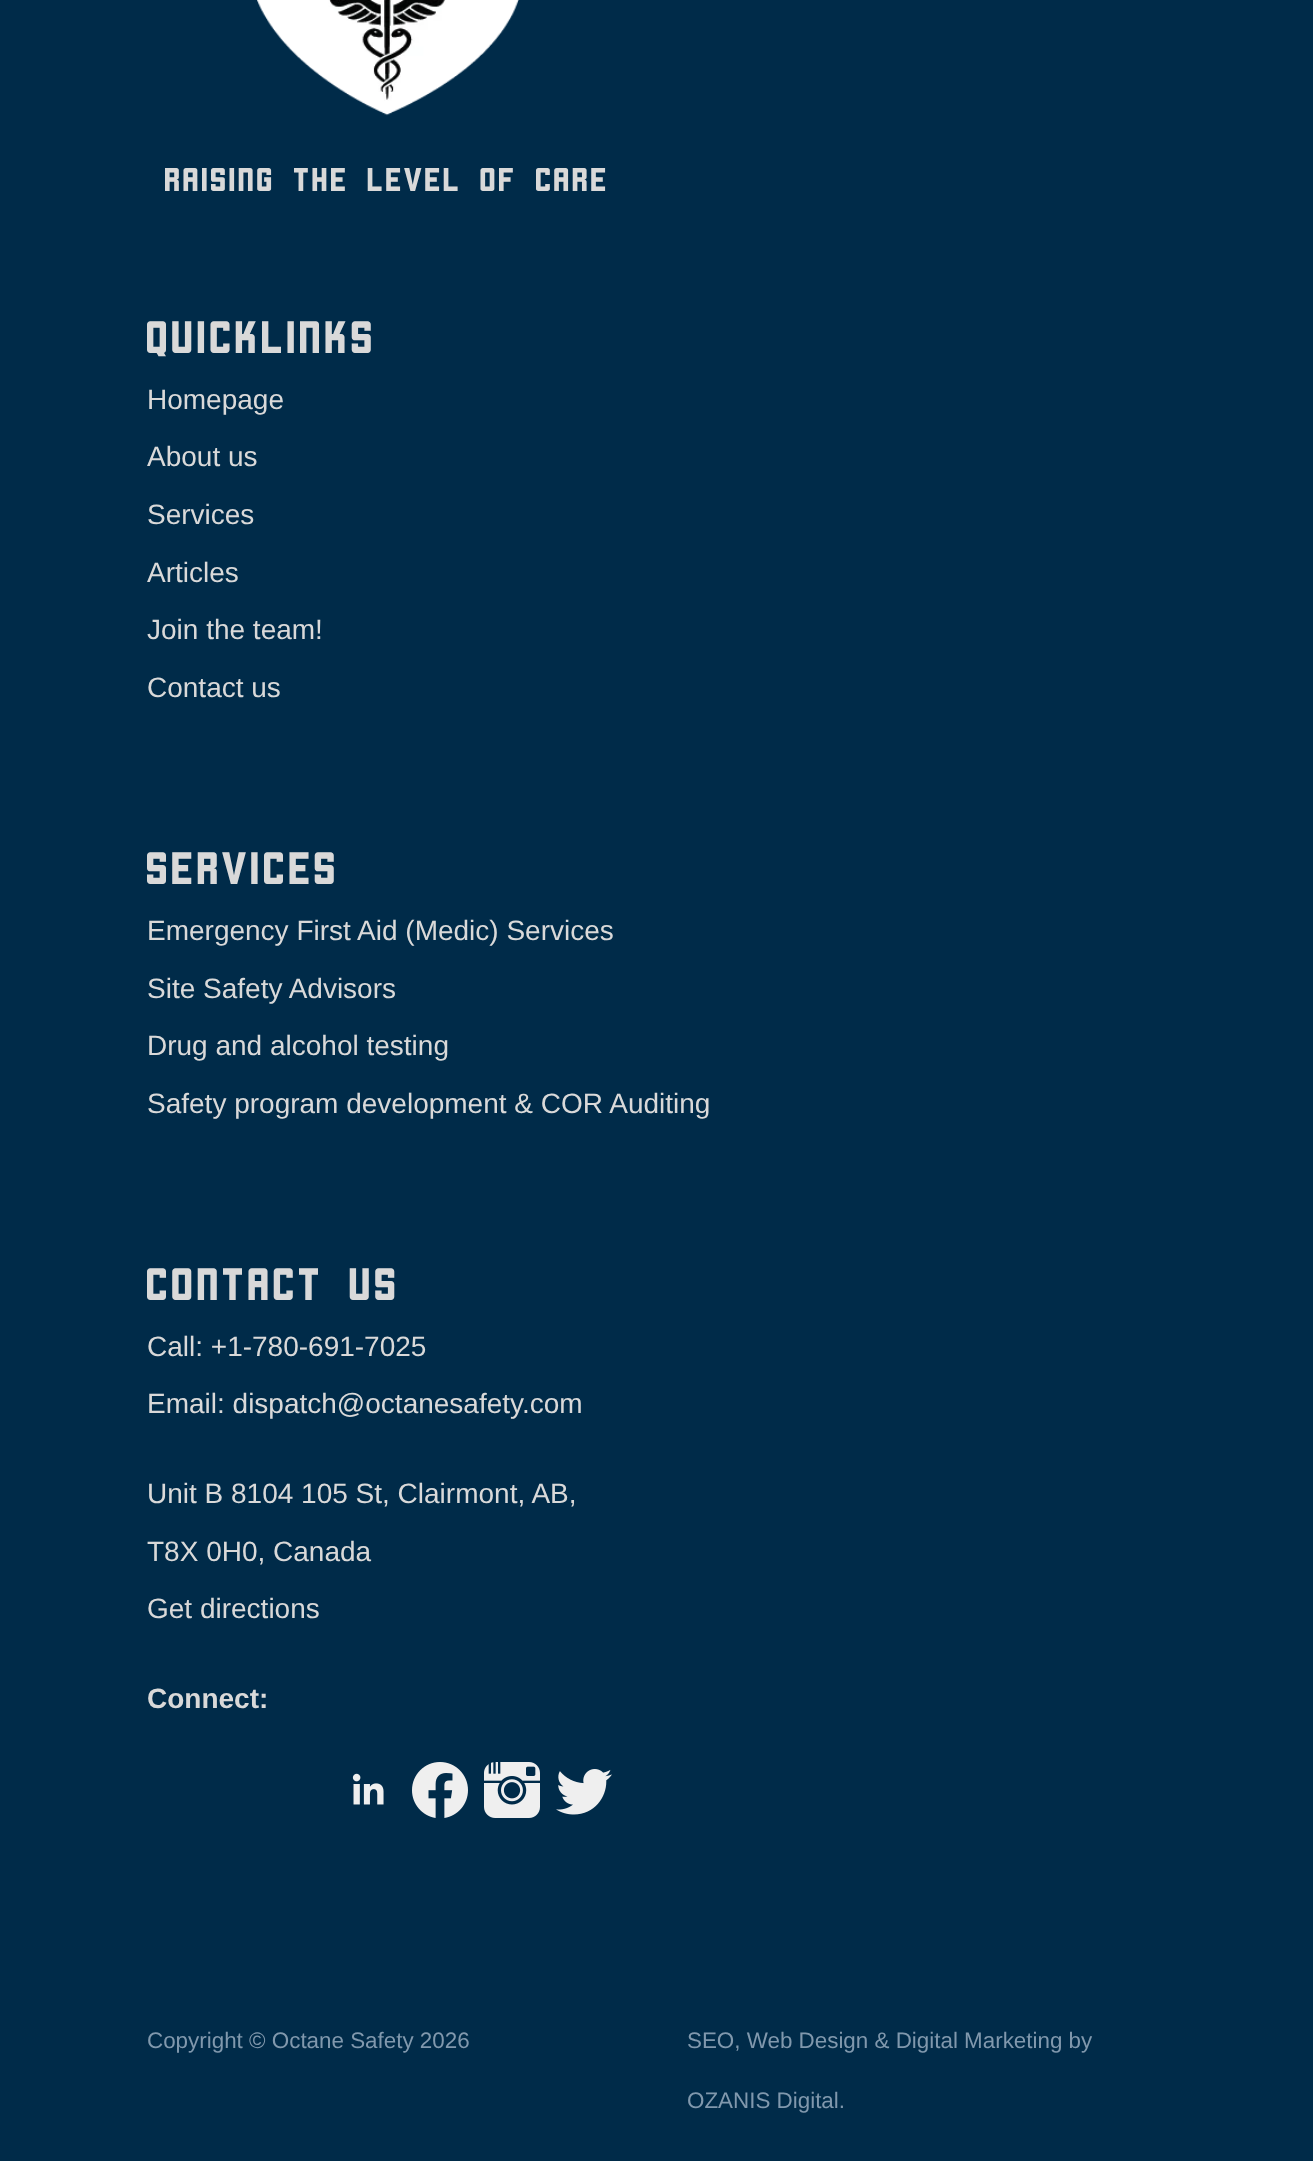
<svg xmlns="http://www.w3.org/2000/svg" width="1313" height="2161">
<rect width="100%" height="100%" fill="#002b49"/>
<image x="257" y="0" width="262" height="116" href="media/1.png"/>
<text x="165" y="191" style="font-family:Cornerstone;font-size:32px;fill:#d9d9d9">Raising the level of care</text>
<text x="147" y="353" style="font-family:Cornerstone;font-size:44px;fill:#d9d9d9">Quicklinks</text>
<text x="147" y="409" style="font-family:Liberation Sans;font-size:28px;fill:#d9d9d9">Homepage</text>
<text x="147" y="466" style="font-family:Liberation Sans;font-size:28px;fill:#d9d9d9">About us</text>
<text x="147" y="524" style="font-family:Liberation Sans;font-size:28px;fill:#d9d9d9">Services</text>
<text x="147" y="582" style="font-family:Liberation Sans;font-size:28px;fill:#d9d9d9">Articles</text>
<text x="147" y="639" style="font-family:Liberation Sans;font-size:28px;fill:#d9d9d9">Join the team!</text>
<text x="147" y="697" style="font-family:Liberation Sans;font-size:28px;fill:#d9d9d9">Contact us</text>
<text x="147" y="884" style="font-family:Cornerstone;font-size:44px;fill:#d9d9d9">Services</text>
<text x="147" y="940" style="font-family:Liberation Sans;font-size:28px;fill:#d9d9d9">Emergency First Aid (Medic) Services</text>
<text x="147" y="998" style="font-family:Liberation Sans;font-size:28px;fill:#d9d9d9">Site Safety Advisors</text>
<text x="147" y="1055" style="font-family:Liberation Sans;font-size:28px;fill:#d9d9d9">Drug and alcohol testing</text>
<text x="147" y="1113" style="font-family:Liberation Sans;font-size:28px;fill:#d9d9d9">Safety program development &amp; COR Auditing</text>
<text x="147" y="1300" style="font-family:Cornerstone;font-size:44px;fill:#d9d9d9">Contact us</text>
<text x="147" y="1356" style="font-family:Liberation Sans;font-size:28px;fill:#d9d9d9">Call: +1-780-691-7025</text>
<text x="147" y="1413" style="font-family:Liberation Sans;font-size:28px;fill:#d9d9d9">Email: dispatch@octanesafety.com</text>
<text x="147" y="1503" style="font-family:Liberation Sans;font-size:28px;fill:#d9d9d9">Unit B 8104 105 St, Clairmont, AB,</text>
<text x="147" y="1561" style="font-family:Liberation Sans;font-size:28px;fill:#d9d9d9">T8X 0H0, Canada</text>
<text x="147" y="1618" style="font-family:Liberation Sans;font-size:28px;fill:#d9d9d9">Get directions</text>
<text x="147" y="1708" style="font-family:Liberation Sans;font-size:28px;font-weight:bold;fill:#d9d9d9">Connect:</text>
<image x="352" y="1773" width="32" height="32" href="media/2.png"/>
<image x="412" y="1762" width="56" height="56" href="media/3.png"/>
<image x="484" y="1762" width="56" height="56" href="media/4.png"/>
<image x="556" y="1769" width="56" height="46" href="media/5.png"/>
<text x="147" y="2048" style="font-family:Liberation Sans;font-size:22.4px;fill:#8098ad">Copyright © Octane Safety 2026</text>
<text x="687" y="2048" style="font-family:Liberation Sans;font-size:22.4px;fill:#8098ad">SEO, Web Design &amp; Digital Marketing by</text>
<text x="687" y="2108" style="font-family:Liberation Sans;font-size:22.4px;fill:#8098ad">OZANIS Digital.</text>
</svg>
